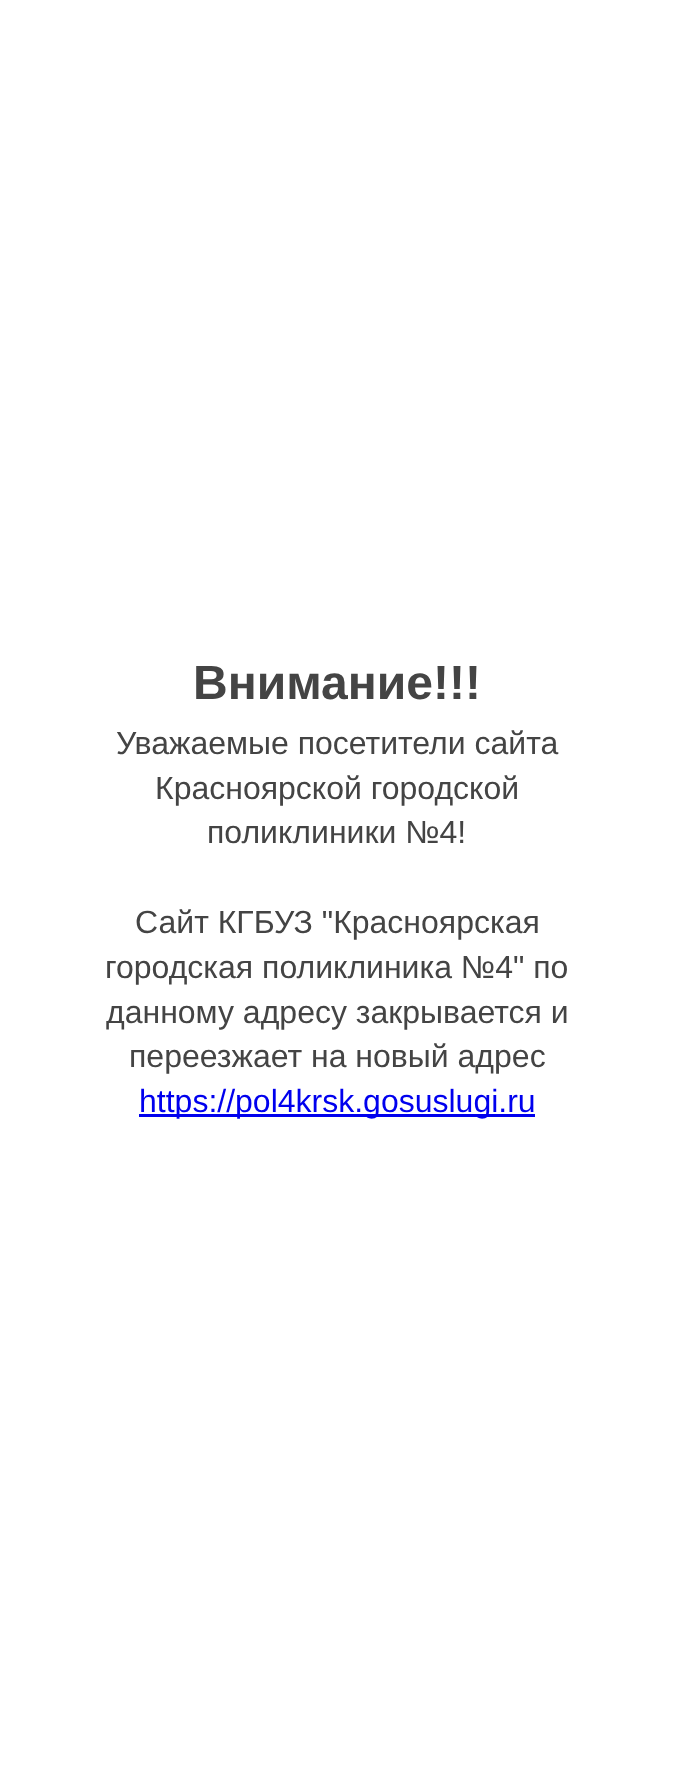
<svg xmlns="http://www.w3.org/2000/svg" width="674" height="1770">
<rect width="100%" height="100%" fill="#fff"/>
<text x="193" y="699" style="font-family:Liberation Sans;font-size:48px;font-weight:bold;fill:#444">Внимание!!!</text>
<text x="116" y="754" style="font-family:Liberation Sans;font-size:32px;fill:#444">Уважаемые посетители сайта</text>
<text x="155" y="799" style="font-family:Liberation Sans;font-size:32px;fill:#444">Красноярской городской</text>
<text x="207" y="843" style="font-family:Liberation Sans;font-size:32px;fill:#444">поликлиники №4!</text>
<text x="135" y="933" style="font-family:Liberation Sans;font-size:32px;fill:#444">Сайт КГБУЗ "Красноярская</text>
<text x="105" y="978" style="font-family:Liberation Sans;font-size:32px;fill:#444">городская поликлиника №4" по</text>
<text x="106" y="1023" style="font-family:Liberation Sans;font-size:32px;fill:#444">данному адресу закрывается и</text>
<text x="129" y="1067" style="font-family:Liberation Sans;font-size:32px;fill:#444">переезжает на новый адрес</text>
<rect x="139" y="1114" width="396" height="3" fill="#00e"/>
<text x="139" y="1112" style="font-family:Liberation Sans;font-size:32px;fill:#00e">https://pol4krsk.gosuslugi.ru</text>
</svg>
